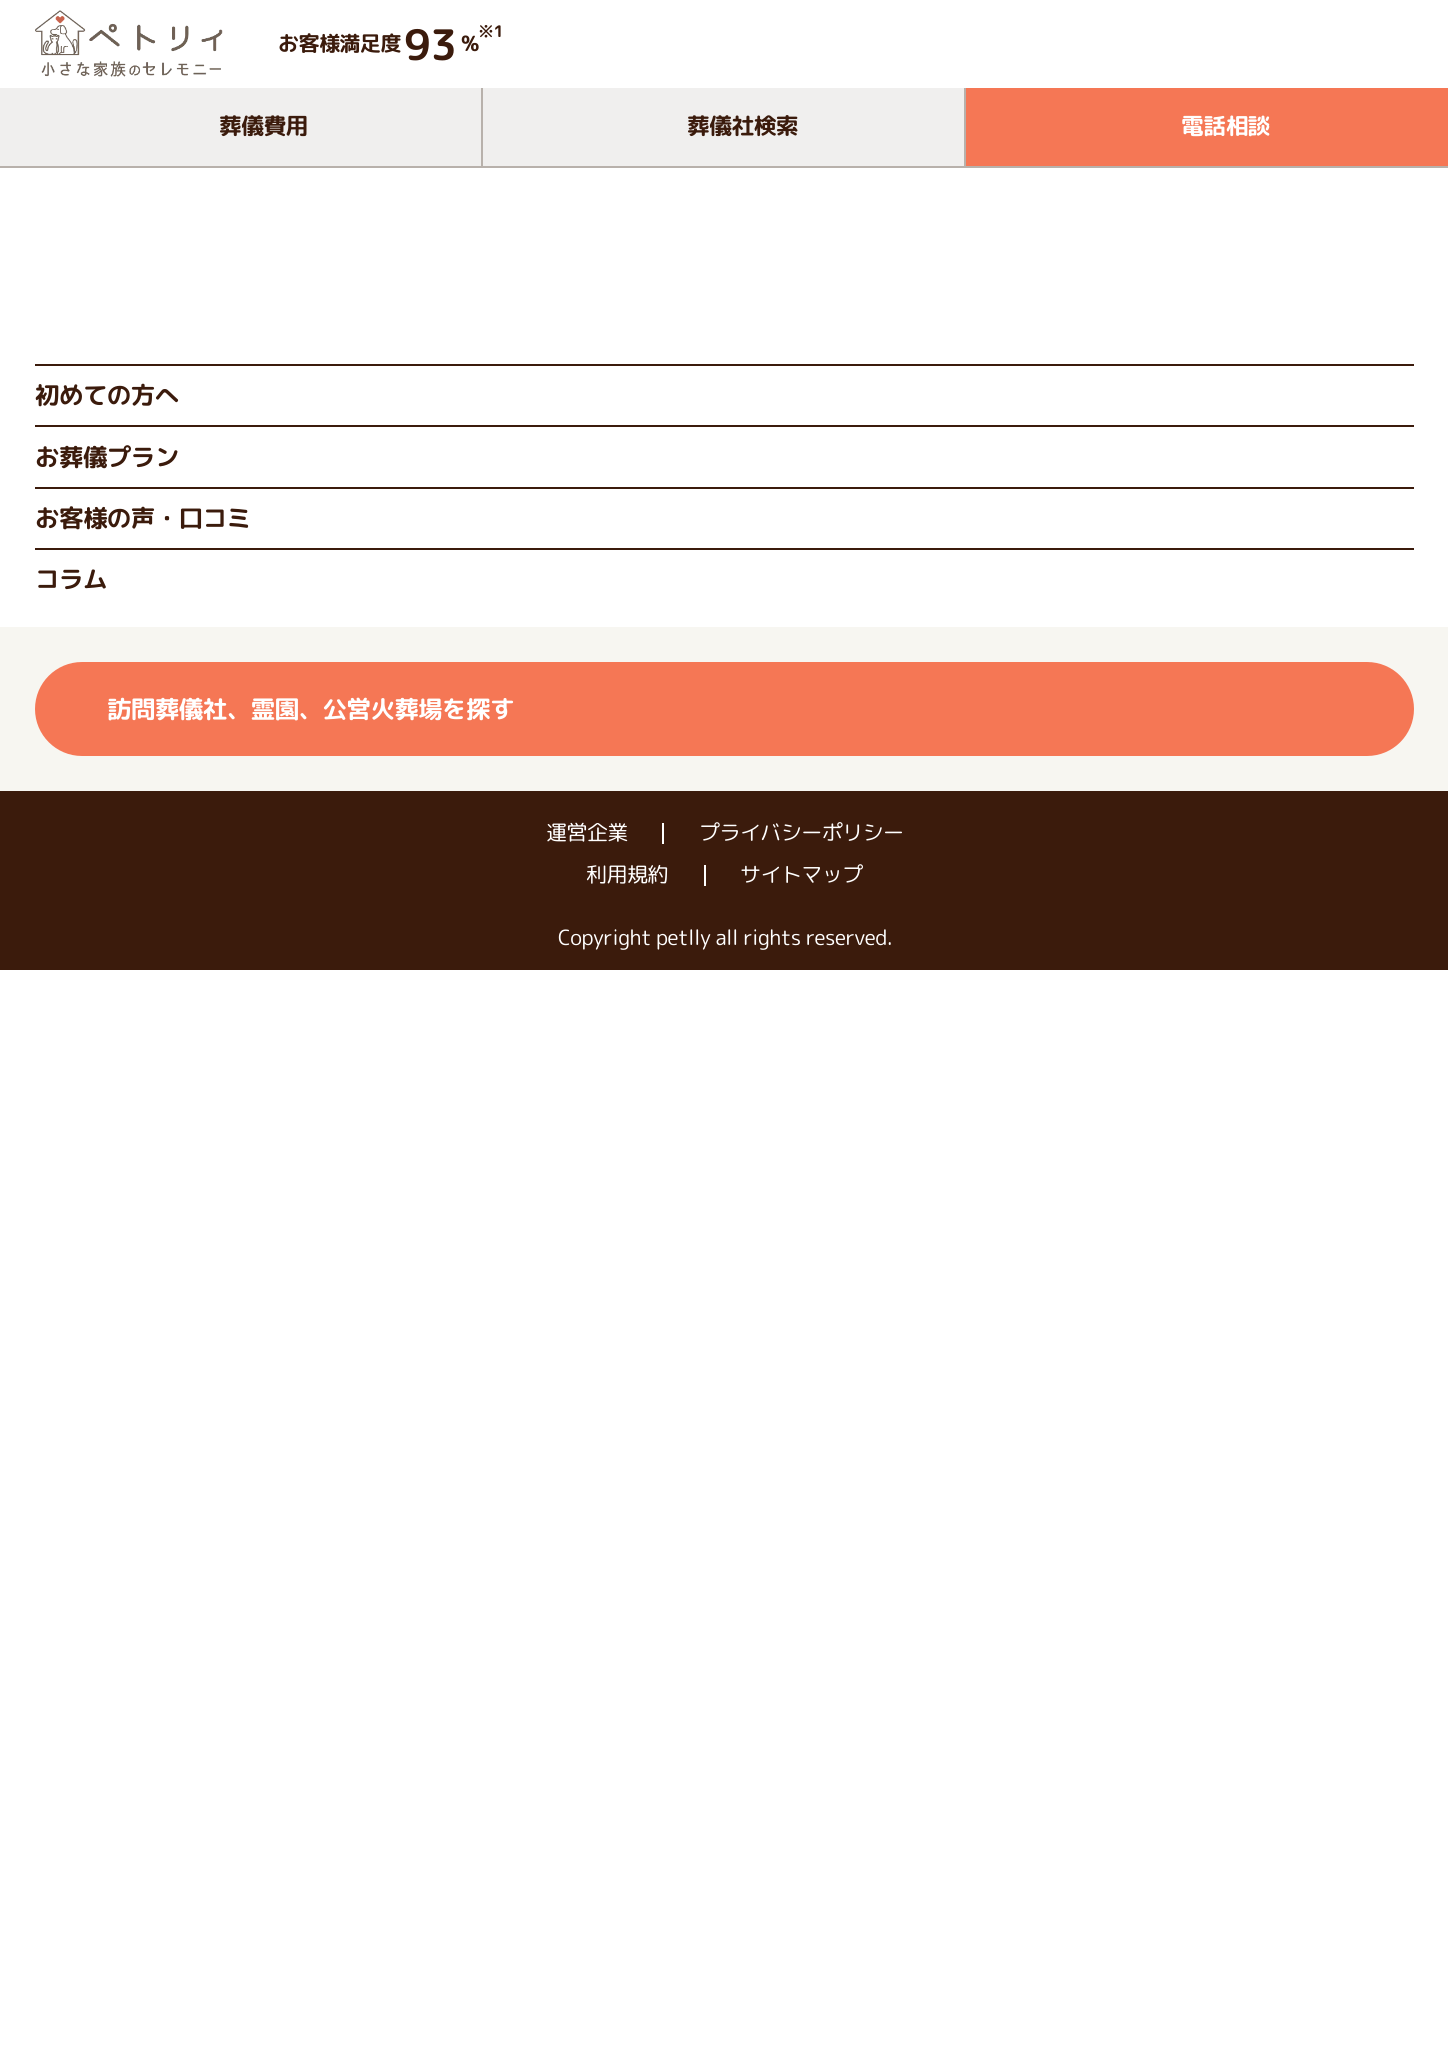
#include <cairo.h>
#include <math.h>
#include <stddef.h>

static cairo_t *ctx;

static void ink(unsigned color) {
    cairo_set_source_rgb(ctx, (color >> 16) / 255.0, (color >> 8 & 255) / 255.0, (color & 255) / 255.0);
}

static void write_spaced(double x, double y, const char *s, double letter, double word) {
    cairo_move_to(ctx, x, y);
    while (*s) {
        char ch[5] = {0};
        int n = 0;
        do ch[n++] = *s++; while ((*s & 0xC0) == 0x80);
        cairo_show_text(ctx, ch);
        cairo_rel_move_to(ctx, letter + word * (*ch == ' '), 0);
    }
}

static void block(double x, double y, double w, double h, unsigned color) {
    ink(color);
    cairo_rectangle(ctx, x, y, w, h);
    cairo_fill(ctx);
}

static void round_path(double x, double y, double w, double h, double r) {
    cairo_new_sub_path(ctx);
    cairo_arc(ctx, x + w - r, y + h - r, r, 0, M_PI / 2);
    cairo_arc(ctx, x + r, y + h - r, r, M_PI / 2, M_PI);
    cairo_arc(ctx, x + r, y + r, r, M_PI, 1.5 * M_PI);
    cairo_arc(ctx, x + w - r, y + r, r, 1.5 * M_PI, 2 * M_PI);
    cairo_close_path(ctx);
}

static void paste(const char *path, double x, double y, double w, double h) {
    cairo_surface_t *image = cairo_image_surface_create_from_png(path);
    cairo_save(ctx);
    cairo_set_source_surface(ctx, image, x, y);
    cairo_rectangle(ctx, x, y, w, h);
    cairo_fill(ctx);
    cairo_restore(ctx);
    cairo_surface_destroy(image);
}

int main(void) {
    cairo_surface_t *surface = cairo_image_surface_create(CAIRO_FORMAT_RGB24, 1448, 2049);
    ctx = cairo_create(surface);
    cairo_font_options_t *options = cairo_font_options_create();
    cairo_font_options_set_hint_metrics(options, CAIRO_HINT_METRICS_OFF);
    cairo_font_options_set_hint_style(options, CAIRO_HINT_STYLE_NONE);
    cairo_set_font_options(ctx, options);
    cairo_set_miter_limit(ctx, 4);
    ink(0xffffff);
    cairo_paint(ctx);
    paste("pic1.png", 35, 10, 188, 67);
    cairo_select_font_face(ctx, "Rounded Mplus 1c Bold", CAIRO_FONT_SLANT_NORMAL, CAIRO_FONT_WEIGHT_BOLD);
    cairo_set_font_size(ctx, 21);
    ink(0x3b1b0c);
    write_spaced(278, 51, "お客様満足度", -0.55, 0);
    cairo_set_font_size(ctx, 42);
    write_spaced(404, 60, "93", -0.55, 0);
    cairo_set_font_size(ctx, 21);
    write_spaced(461, 51, "%", -0.55, 0);
    cairo_set_font_size(ctx, 16);
    write_spaced(478, 37, "※1", -0.55, 0);
    block(0, 166, 1448, 2, 0xb8b1ab);
    block(0, 88, 481, 78, 0xf0efee);
    block(481, 88, 2, 78, 0xb8b1ab);
    cairo_set_font_size(ctx, 22.75);
    ink(0x3b1b0c);
    write_spaced(219, 134, "葬儀費用", -0.55, 0);
    block(483, 88, 481, 78, 0xf0efee);
    block(964, 88, 2, 78, 0xb8b1ab);
    ink(0x3b1b0c);
    write_spaced(687, 134, "葬儀社検索", -0.55, 0);
    block(966, 88, 482, 78, 0xf57755);
    ink(0xffffff);
    write_spaced(1181, 134, "電話相談", -0.55, 0);
    block(35, 364, 1379, 2, 0x3b1b0c);
    cairo_set_font_size(ctx, 24.5);
    write_spaced(35, 404, "初めての方へ", -0.55, 0);
    block(35, 425, 1379, 2, 0x3b1b0c);
    write_spaced(35, 466, "お葬儀プラン", -0.55, 0);
    block(35, 487, 1379, 2, 0x3b1b0c);
    write_spaced(35, 527, "お客様の声・口コミ", -0.55, 0);
    block(35, 548, 1379, 2, 0x3b1b0c);
    write_spaced(35, 588, "コラム", -0.55, 0);
    block(0, 627, 1448, 164, 0xf7f6f1);
    ink(0xf57755);
    round_path(35, 662, 1379, 94, 47);
    cairo_fill(ctx);
    ink(0xffffff);
    write_spaced(107, 718, "訪問葬儀社、霊園、公営火葬場を探す", -0.55, 0);
    block(0, 791, 1448, 179, 0x3b1b0c);
    block(662, 823, 2, 21, 0xffffff);
    cairo_select_font_face(ctx, "Rounded Mplus 1c", CAIRO_FONT_SLANT_NORMAL, CAIRO_FONT_WEIGHT_NORMAL);
    cairo_set_font_size(ctx, 21);
    write_spaced(546, 840, "運営企業", -0.55, 0);
    write_spaced(699, 840, "プライバシーポリシー", -0.55, 0);
    block(704, 865, 2, 21, 0xffffff);
    write_spaced(586, 882, "利用規約", -0.55, 0);
    write_spaced(740, 882, "サイトマップ", -0.55, 0);
    write_spaced(558, 945, "Copyright petlly all rights reserved.", -0.55, 0);
    cairo_surface_write_to_png(surface, "screenshot.png");
    cairo_font_options_destroy(options);
    cairo_destroy(ctx);
    cairo_surface_destroy(surface);
    return 0;
}
